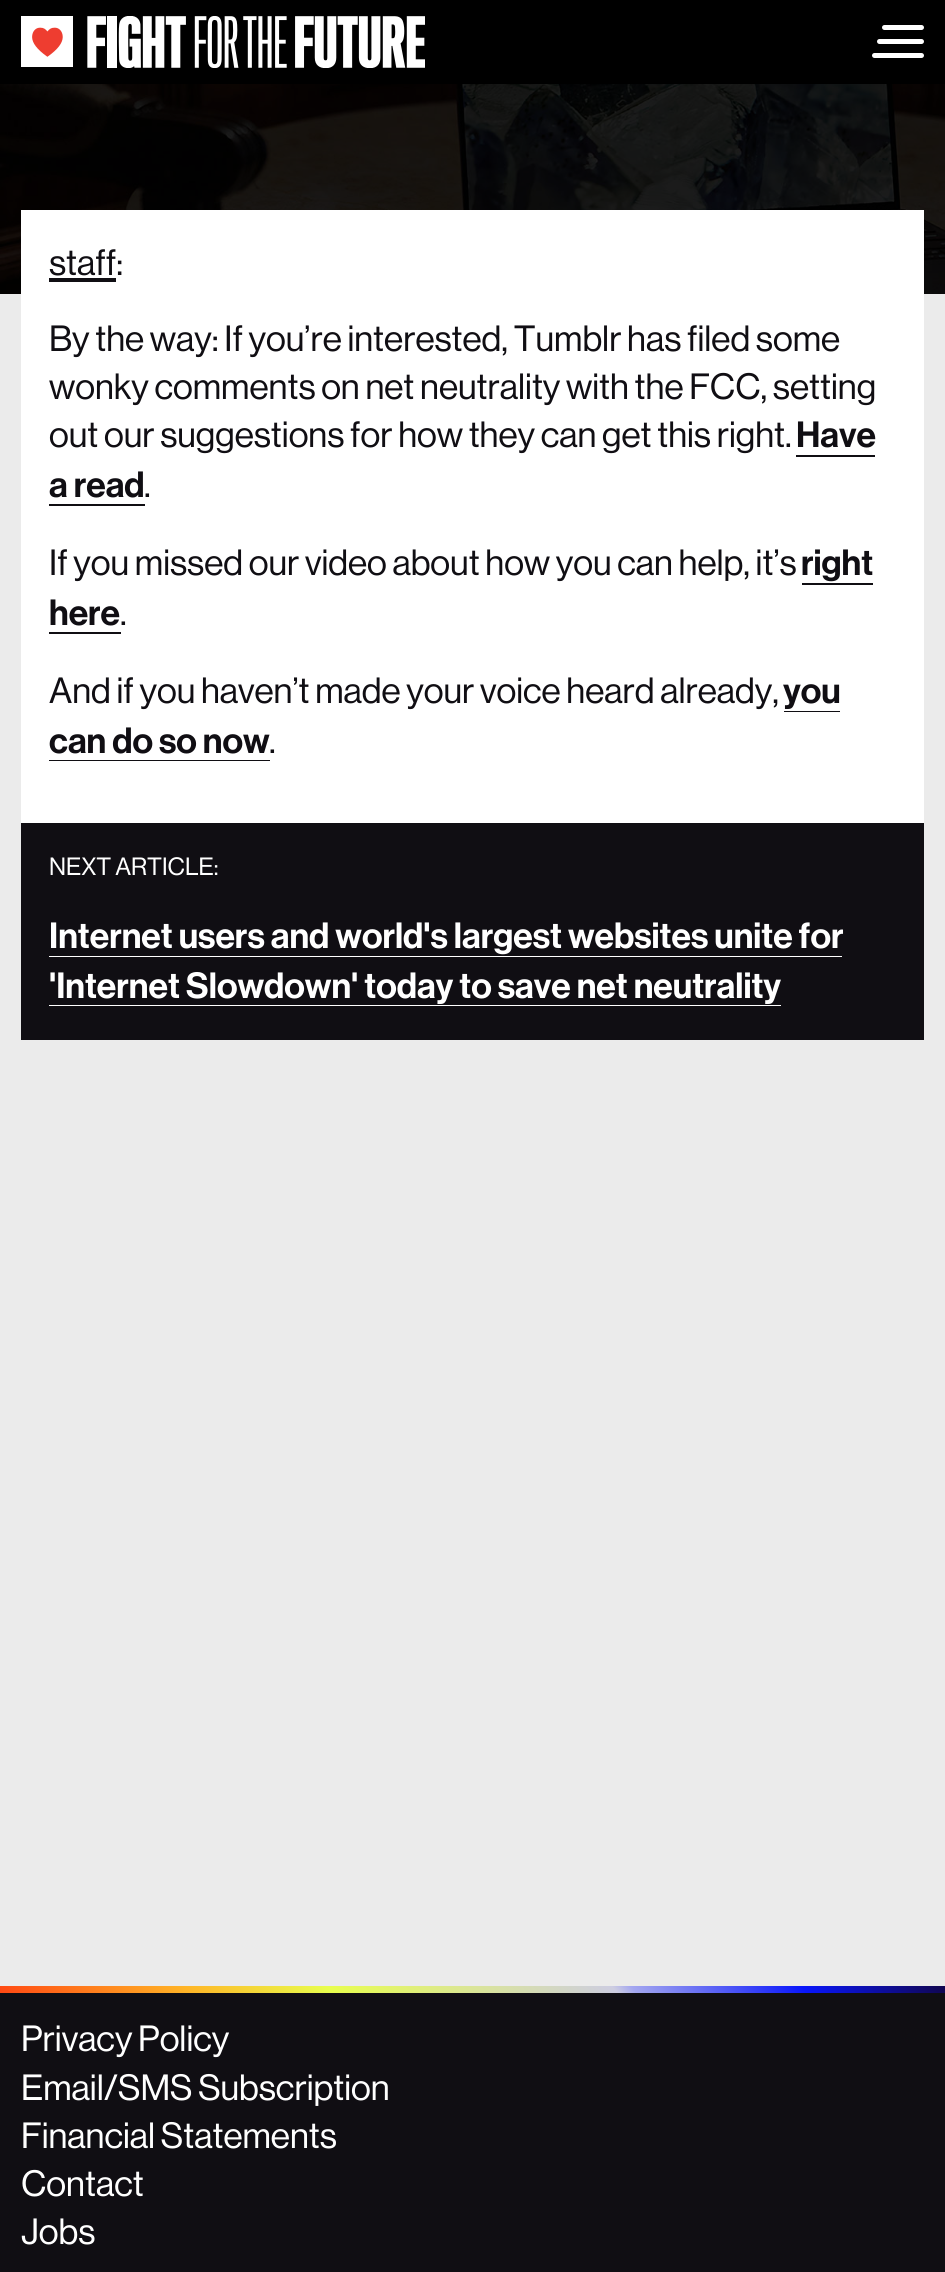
#include <cairo.h>
#include <math.h>
#include <stddef.h>

typedef struct { const char *family; double size; int italic, bold; unsigned color; } style_t;
static cairo_t *ctx;

static void ink(unsigned color) {
    cairo_set_source_rgb(ctx, (color >> 16) / 255.0, (color >> 8 & 255) / 255.0, (color & 255) / 255.0);
}

static void write(double x, double y, const char *s, const style_t *st) {
    cairo_select_font_face(ctx, st->family, st->italic ? CAIRO_FONT_SLANT_ITALIC : CAIRO_FONT_SLANT_NORMAL,
        st->bold ? CAIRO_FONT_WEIGHT_BOLD : CAIRO_FONT_WEIGHT_NORMAL);
    cairo_set_font_size(ctx, st->size);
    ink(st->color);
    cairo_move_to(ctx, x, y);
    cairo_show_text(ctx, s);
}

static void block(double x, double y, double w, double h, unsigned color) {
    ink(color);
    cairo_rectangle(ctx, x, y, w, h);
    cairo_fill(ctx);
}

static void round_path(double x, double y, double w, double h, double r) {
    cairo_new_sub_path(ctx);
    cairo_arc(ctx, x + w - r, y + h - r, r, 0, M_PI / 2);
    cairo_arc(ctx, x + r, y + h - r, r, M_PI / 2, M_PI);
    cairo_arc(ctx, x + r, y + r, r, M_PI, 1.5 * M_PI);
    cairo_arc(ctx, x + w - r, y + r, r, 1.5 * M_PI, 2 * M_PI);
    cairo_close_path(ctx);
}

static void paste(const char *path, double x, double y, double w, double h) {
    cairo_surface_t *image = cairo_image_surface_create_from_png(path);
    cairo_save(ctx);
    cairo_set_source_surface(ctx, image, x, y);
    cairo_rectangle(ctx, x, y, w, h);
    cairo_fill(ctx);
    cairo_restore(ctx);
    cairo_surface_destroy(image);
}

static const style_t s1 = {"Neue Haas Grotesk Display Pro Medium", 35.75, 0, 0, 0x100e13};
static const style_t s2 = {"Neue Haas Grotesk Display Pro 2 Medium", 35.75, 0, 0, 0x100e13};
static const style_t s3 = {"Neue Haas Grotesk Display Pro Medium", 24.5, 0, 0, 0xffffff};
static const style_t s4 = {"Neue Haas Grotesk Display Pro 2 Medium", 35.75, 0, 0, 0xffffff};
static const style_t s5 = {"Neue Haas Grotesk Display Pro Medium", 35.75, 0, 0, 0xffffff};

int main(void) {
    cairo_surface_t *surface = cairo_image_surface_create(CAIRO_FORMAT_RGB24, 945, 2272);
    ctx = cairo_create(surface);
    cairo_font_options_t *options = cairo_font_options_create();
    cairo_font_options_set_hint_metrics(options, CAIRO_HINT_METRICS_OFF);
    cairo_font_options_set_hint_style(options, CAIRO_HINT_STYLE_NONE);
    cairo_set_font_options(ctx, options);
    cairo_set_miter_limit(ctx, 4);
    cairo_pattern_t *gradient;
    ink(0x000000);
    cairo_paint(ctx);
    paste("pic1.png", 21, 16, 404, 52);
    ink(0xffffff);
    round_path(877, 39, 47, 5, 2.5);
    cairo_fill(ctx);
    round_path(882, 25, 42, 5, 2.5);
    cairo_fill(ctx);
    round_path(872, 53, 52, 5, 2.5);
    cairo_fill(ctx);
    block(0, 294, 945, 1692, 0xebebeb);
    paste("pic2.png", 0, 84, 945, 210);
    block(21, 210, 903, 613, 0xffffff);
    write(49, 275, "staff:", &s1);
    block(49, 278, 67, 4, 0x100e13);
    write(49, 351, "By the way: If you’re interested, Tumblr has filed some", &s1);
    write(49, 399, "wonky comments on net neutrality with the FCC, setting", &s1);
    write(49, 447, "out our suggestions for how they can get this right.", &s1);
    write(796, 447, "Have", &s2);
    block(796, 455, 79, 2, 0x100e13);
    write(49, 497, "a read", &s2);
    block(49, 504, 96, 2, 0x100e13);
    write(144, 497, ".", &s1);
    write(49, 575, "If you missed our video about how you can help, it’s", &s1);
    write(801, 575, "right", &s2);
    block(802, 583, 71, 2, 0x100e13);
    write(49, 625, "here", &s2);
    block(49, 632, 72, 2, 0x100e13);
    write(120, 625, ".", &s1);
    write(49, 703, "And if you haven’t made your voice heard already,", &s1);
    write(783, 703, "you", &s2);
    block(784, 711, 56, 1, 0x100e13);
    write(49, 753, "can do so now", &s2);
    block(49, 760, 221, 1, 0x100e13);
    write(269, 753, ".", &s1);
    block(21, 823, 903, 217, 0x100e13);
    write(49, 875, "NEXT ARTICLE:", &s3);
    write(49, 948, "Internet users and world's largest websites unite for", &s4);
    block(49, 956, 793, 1, 0xffffff);
    write(49, 998, "'Internet Slowdown' today to save net neutrality", &s4);
    block(49, 1005, 732, 1, 0xffffff);
    gradient = cairo_pattern_create_linear(194, 2224, 751, 1756);
    cairo_pattern_add_color_stop_rgba(gradient, 0, 1, 0.282, 0.075, 1);
    cairo_pattern_add_color_stop_rgba(gradient, 0.2, 1, 0.71, 0.153, 1);
    cairo_pattern_add_color_stop_rgba(gradient, 0.35, 0.91, 0.996, 0.302, 1);
    cairo_pattern_add_color_stop_rgba(gradient, 0.65, 0.804, 0.804, 0.882, 1);
    cairo_pattern_add_color_stop_rgba(gradient, 0.67, 0.643, 0.655, 0.941, 1);
    cairo_pattern_add_color_stop_rgba(gradient, 0.85, 0.035, 0.086, 0.984, 1);
    cairo_pattern_add_color_stop_rgba(gradient, 1, 0.067, 0.024, 0.306, 1);
    cairo_set_source(ctx, gradient);
    cairo_pattern_destroy(gradient);
    cairo_rectangle(ctx, 0, 1986, 945, 7);
    cairo_fill(ctx);
    block(0, 1993, 945, 279, 0x100e13);
    write(21, 2051, "Privacy Policy", &s5);
    write(21, 2100, "Email/SMS Subscription", &s5);
    write(21, 2148, "Financial Statements", &s5);
    write(21, 2196, "Contact", &s5);
    write(21, 2244, "Jobs", &s5);
    cairo_surface_write_to_png(surface, "screenshot.png");
    cairo_font_options_destroy(options);
    cairo_destroy(ctx);
    cairo_surface_destroy(surface);
    return 0;
}
